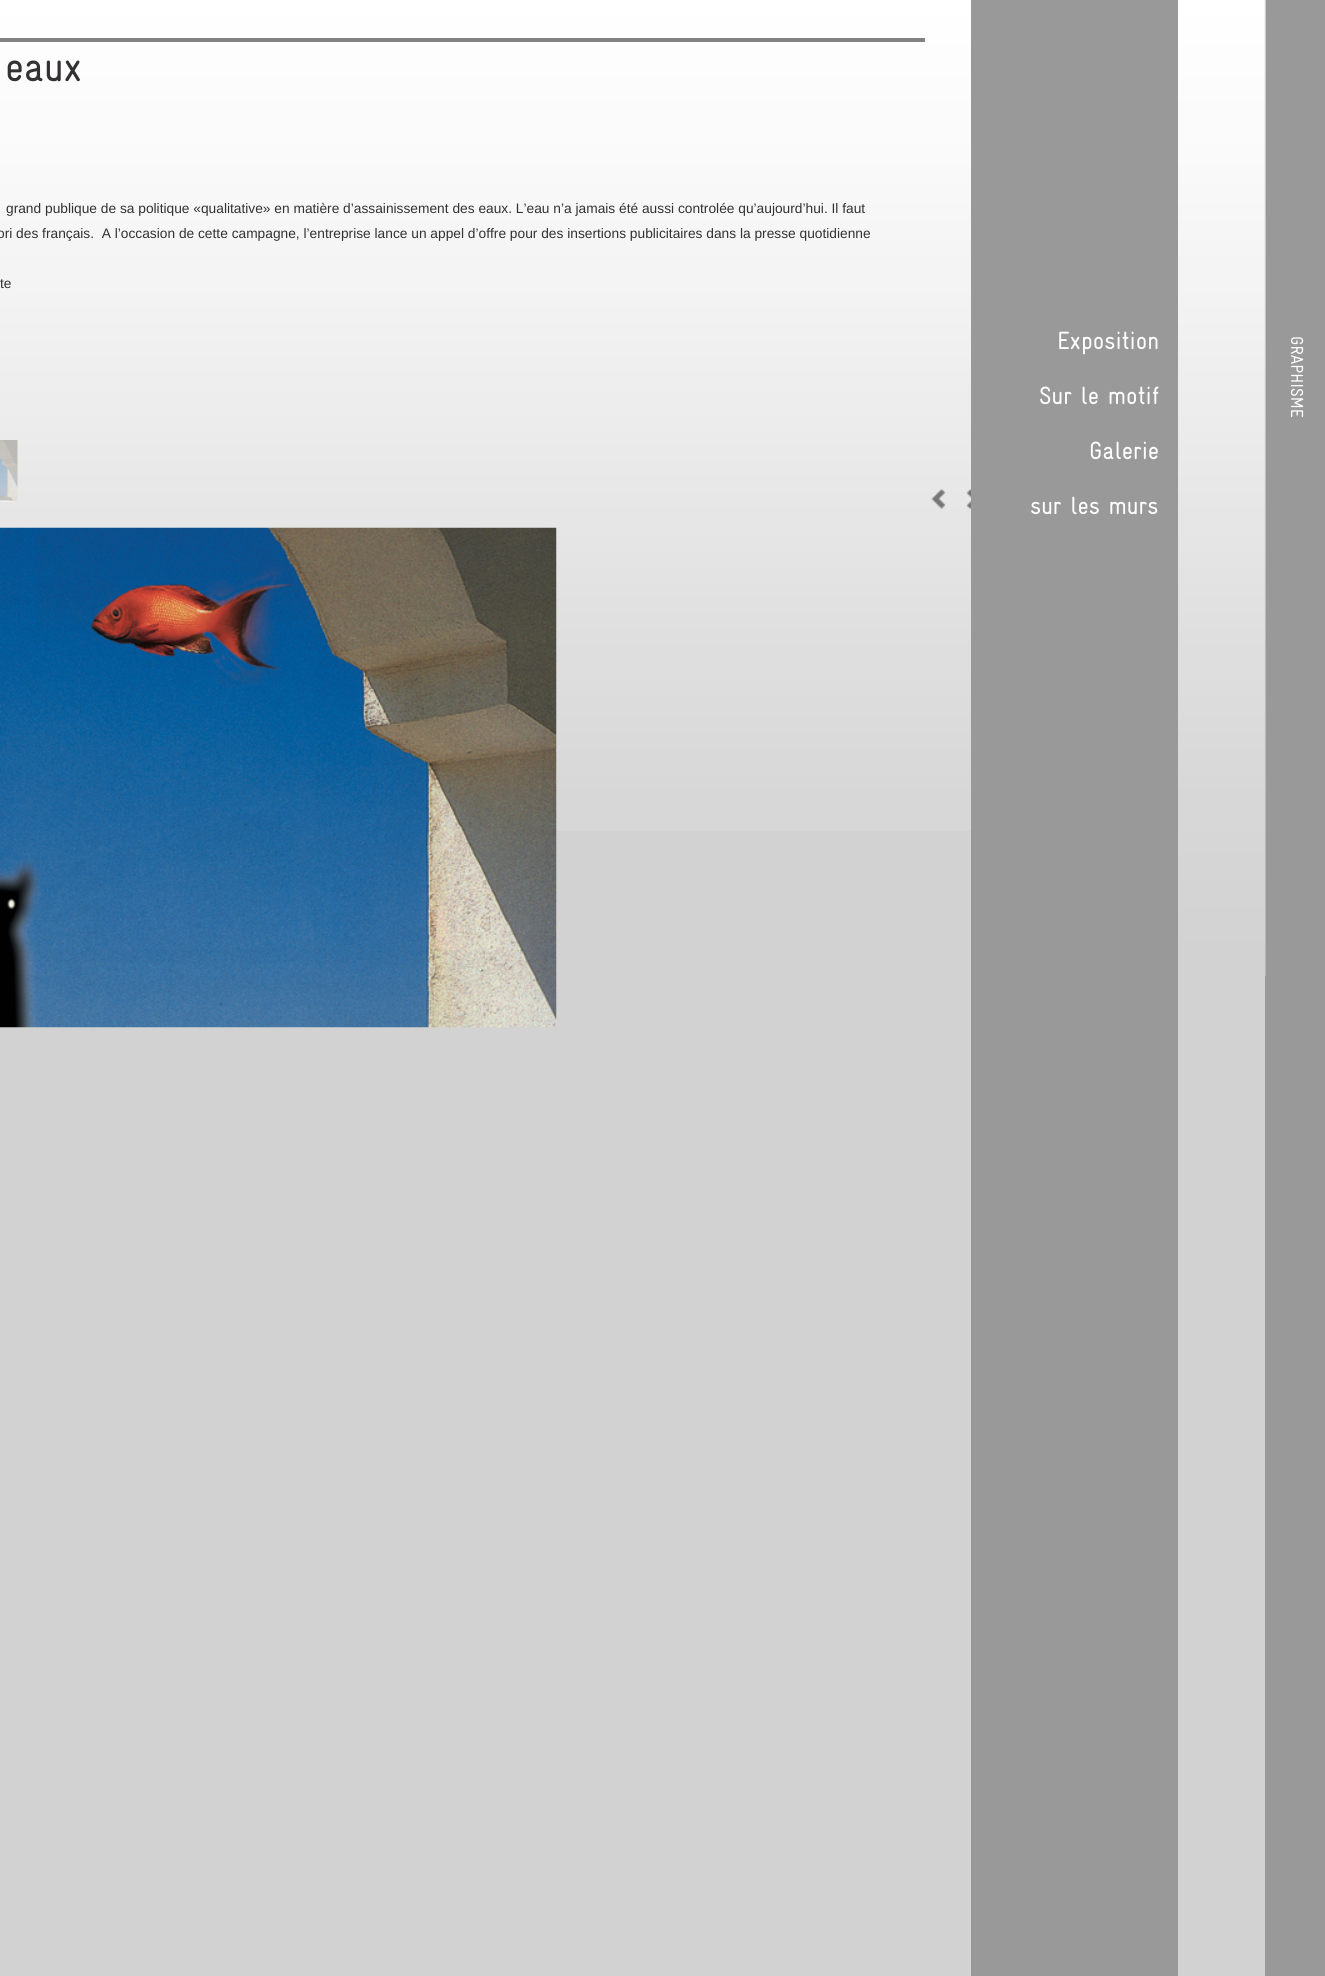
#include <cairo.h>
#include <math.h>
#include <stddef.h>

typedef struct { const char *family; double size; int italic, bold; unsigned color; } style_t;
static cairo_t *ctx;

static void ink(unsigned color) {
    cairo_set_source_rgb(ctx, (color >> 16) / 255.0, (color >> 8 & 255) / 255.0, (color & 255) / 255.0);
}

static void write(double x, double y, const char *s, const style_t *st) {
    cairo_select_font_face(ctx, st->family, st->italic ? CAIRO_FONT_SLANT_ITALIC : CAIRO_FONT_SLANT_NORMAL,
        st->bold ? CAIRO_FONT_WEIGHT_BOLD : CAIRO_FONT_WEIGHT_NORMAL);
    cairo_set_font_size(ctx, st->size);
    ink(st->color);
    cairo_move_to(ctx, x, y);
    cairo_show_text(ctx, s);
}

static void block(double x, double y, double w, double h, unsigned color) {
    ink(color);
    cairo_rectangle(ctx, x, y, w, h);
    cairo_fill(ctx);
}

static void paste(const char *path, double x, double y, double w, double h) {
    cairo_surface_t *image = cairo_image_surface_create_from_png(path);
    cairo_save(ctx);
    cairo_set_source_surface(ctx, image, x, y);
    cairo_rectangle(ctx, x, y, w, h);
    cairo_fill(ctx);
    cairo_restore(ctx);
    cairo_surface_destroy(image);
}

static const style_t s1 = {"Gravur", 42, 0, 0, 0x333132};
static const style_t s2 = {"Liberation Sans", 13.75, 0, 0, 0x333132};
static const style_t s3 = {"Gravur", 25, 0, 0, 0xffffff};
static const style_t s4 = {"Gravur", 17.5, 0, 0, 0xffffff};

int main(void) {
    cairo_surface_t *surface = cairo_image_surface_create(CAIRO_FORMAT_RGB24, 1325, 1976);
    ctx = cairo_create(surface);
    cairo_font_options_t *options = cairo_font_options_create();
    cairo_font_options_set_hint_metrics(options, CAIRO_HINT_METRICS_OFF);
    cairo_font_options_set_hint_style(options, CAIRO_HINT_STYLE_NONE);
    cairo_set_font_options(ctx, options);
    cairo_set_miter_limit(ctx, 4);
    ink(0xd3d2d2);
    cairo_paint(ctx);
    paste("pic1.png", 0, 0, 971, 831);
    block(0, 38, 925, 4, 0x828282);
    write(5, 81, "eaux", &s1);
    write(6, 213, "grand publique de sa politique «qualitative» en matière d’assainissement des eaux. L’eau n’a jamais été aussi controlée qu’aujourd’hui. Il faut", &s2);
    write(-3, 238, "ori des français.  A l’occasion de cette campagne, l’entreprise lance un appel d’offre pour des insertions publicitaires dans la presse quotidienne", &s2);
    write(0, 288, "te", &s2);
    paste("pic2.png", 0, 440, 18, 62);
    paste("pic3.png", 931, 488, 15, 21);
    paste("pic4.png", 966, 489, 5, 20);
    paste("pic5.png", 0, 527, 557, 501);
    block(971, 0, 354, 1976, 0x999999);
    write(1057, 349, "Exposition", &s3);
    write(1039, 404, "Sur le motif", &s3);
    write(1089, 459, "Galerie", &s3);
    write(1030, 514, "sur les murs", &s3);
    block(1178, 0, 87, 1976, 0xd3d2d2);
    paste("pic6.png", 1178, 0, 88, 977);
    cairo_save(ctx);
    cairo_translate(ctx, 1291, 336);
    cairo_rotate(ctx, 90 * M_PI / 180);
    write(0, 0, "GRAPHISME", &s4);
    cairo_restore(ctx);
    cairo_surface_write_to_png(surface, "screenshot.png");
    cairo_font_options_destroy(options);
    cairo_destroy(ctx);
    cairo_surface_destroy(surface);
    return 0;
}
